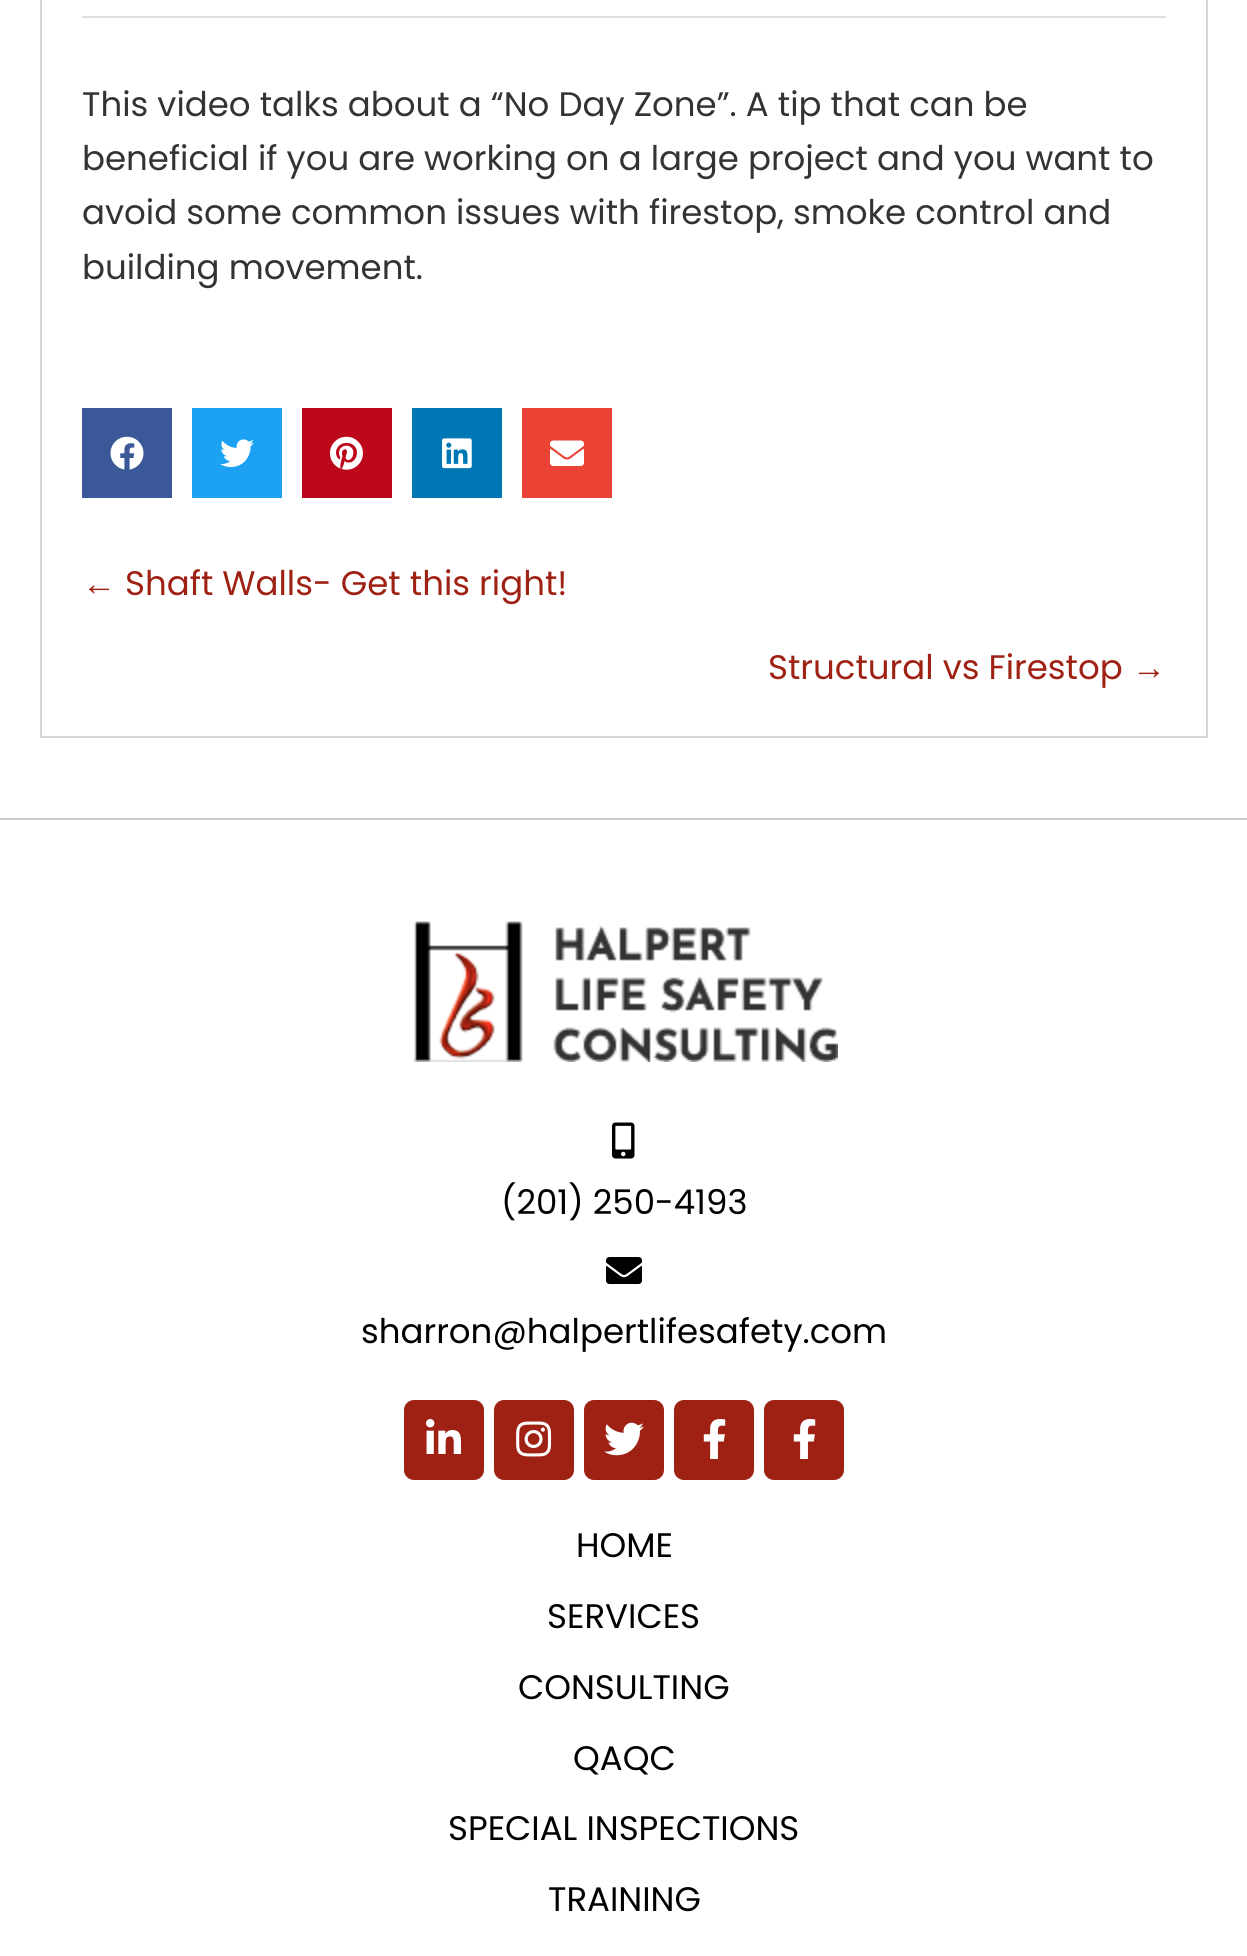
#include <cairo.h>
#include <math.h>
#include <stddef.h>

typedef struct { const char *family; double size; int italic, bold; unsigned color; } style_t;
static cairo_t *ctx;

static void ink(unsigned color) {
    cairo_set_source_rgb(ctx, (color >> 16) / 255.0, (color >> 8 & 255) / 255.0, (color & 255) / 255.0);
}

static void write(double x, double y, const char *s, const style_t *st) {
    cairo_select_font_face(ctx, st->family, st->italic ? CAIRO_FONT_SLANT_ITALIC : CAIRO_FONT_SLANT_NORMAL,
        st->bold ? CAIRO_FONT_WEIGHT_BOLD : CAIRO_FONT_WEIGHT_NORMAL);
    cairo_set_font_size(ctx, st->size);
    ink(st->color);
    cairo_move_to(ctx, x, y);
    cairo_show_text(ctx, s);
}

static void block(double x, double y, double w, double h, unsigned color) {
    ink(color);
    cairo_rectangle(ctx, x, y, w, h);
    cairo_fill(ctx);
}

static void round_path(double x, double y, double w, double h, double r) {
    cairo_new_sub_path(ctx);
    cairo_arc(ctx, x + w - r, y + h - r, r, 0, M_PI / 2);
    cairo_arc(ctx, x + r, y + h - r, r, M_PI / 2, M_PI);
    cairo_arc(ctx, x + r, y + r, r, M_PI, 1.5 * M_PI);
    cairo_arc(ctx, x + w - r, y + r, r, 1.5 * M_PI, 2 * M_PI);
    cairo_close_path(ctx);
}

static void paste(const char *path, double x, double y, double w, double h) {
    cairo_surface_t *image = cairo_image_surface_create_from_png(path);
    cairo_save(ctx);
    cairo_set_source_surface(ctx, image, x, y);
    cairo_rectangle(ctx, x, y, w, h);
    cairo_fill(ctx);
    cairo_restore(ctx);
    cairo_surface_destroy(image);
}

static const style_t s1 = {"Poppins", 34, 0, 0, 0x333333};
static const style_t s2 = {"Liberation Sans", 34, 0, 0, 0x9e2113};
static const style_t s3 = {"Poppins", 34, 0, 0, 0x9e2113};
static const style_t s4 = {"Poppins", 34, 0, 0, 0x000000};

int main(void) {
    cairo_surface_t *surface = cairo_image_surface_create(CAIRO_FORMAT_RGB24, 1247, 1956);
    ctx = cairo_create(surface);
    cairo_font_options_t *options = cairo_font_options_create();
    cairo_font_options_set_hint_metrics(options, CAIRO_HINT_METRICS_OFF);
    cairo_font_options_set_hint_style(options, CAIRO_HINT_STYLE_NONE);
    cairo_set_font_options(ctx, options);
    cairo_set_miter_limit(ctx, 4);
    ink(0xffffff);
    cairo_paint(ctx);
    cairo_rectangle(ctx, 41, -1, 1166, 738);
    ink(0xd6d6d6);
    cairo_stroke(ctx);
    block(82, 16, 1084, 2, 0xe0e0e0);
    write(82, 116, "This video talks about a “No Day Zone”. A tip that can be", &s1);
    write(82, 170, "beneficial if you are working on a large project and you want to", &s1);
    write(82, 224, "avoid some common issues with firestop, smoke control and", &s1);
    write(82, 279, "building movement.", &s1);
    block(82, 408, 90, 90, 0x3b5998);
    paste("pic1.png", 110, 436, 34, 34);
    block(192, 408, 90, 90, 0x1da1f2);
    paste("pic2.png", 220, 439, 34, 29);
    block(302, 408, 90, 90, 0xbd081c);
    paste("pic3.png", 330, 436, 33, 34);
    block(412, 408, 90, 90, 0x0077b5);
    paste("pic4.png", 442, 438, 30, 31);
    block(522, 408, 90, 90, 0xea4335);
    paste("pic5.png", 550, 440, 34, 26);
    write(82, 595, "←", &s2);
    write(125, 595, "Shaft Walls- Get this right!", &s3);
    write(768, 679, "Structural vs Firestop", &s3);
    write(1132, 679, "→", &s2);
    block(0, 818, 1247, 2, 0xcccccc);
    paste("pic6.png", 413, 921, 425, 141);
    paste("pic7.png", 612, 1122, 23, 37);
    write(501, 1214, "(201) 250-4193", &s4);
    paste("pic8.png", 606, 1257, 36, 27);
    write(361, 1343, "sharron@halpertlifesafety.com", &s4);
    ink(0x9e2113);
    round_path(404, 1400, 80, 80, 10);
    cairo_fill(ctx);
    paste("pic9.png", 426, 1419, 35, 35);
    round_path(494, 1400, 80, 80, 10);
    cairo_fill(ctx);
    paste("pic10.png", 516, 1421, 36, 36);
    round_path(584, 1400, 80, 80, 10);
    cairo_fill(ctx);
    paste("pic11.png", 604, 1422, 40, 34);
    round_path(674, 1400, 80, 80, 10);
    cairo_fill(ctx);
    paste("pic12.png", 703, 1419, 23, 40);
    round_path(764, 1400, 80, 80, 10);
    cairo_fill(ctx);
    paste("pic12.png", 793, 1419, 23, 40);
    write(576, 1557, "HOME", &s4);
    write(547, 1628, "SERVICES", &s4);
    write(518, 1699, "CONSULTING", &s4);
    write(573, 1770, "QAQC", &s4);
    write(448, 1840, "SPECIAL INSPECTIONS", &s4);
    write(548, 1911, "TRAINING", &s4);
    cairo_surface_write_to_png(surface, "screenshot.png");
    cairo_font_options_destroy(options);
    cairo_destroy(ctx);
    cairo_surface_destroy(surface);
    return 0;
}
